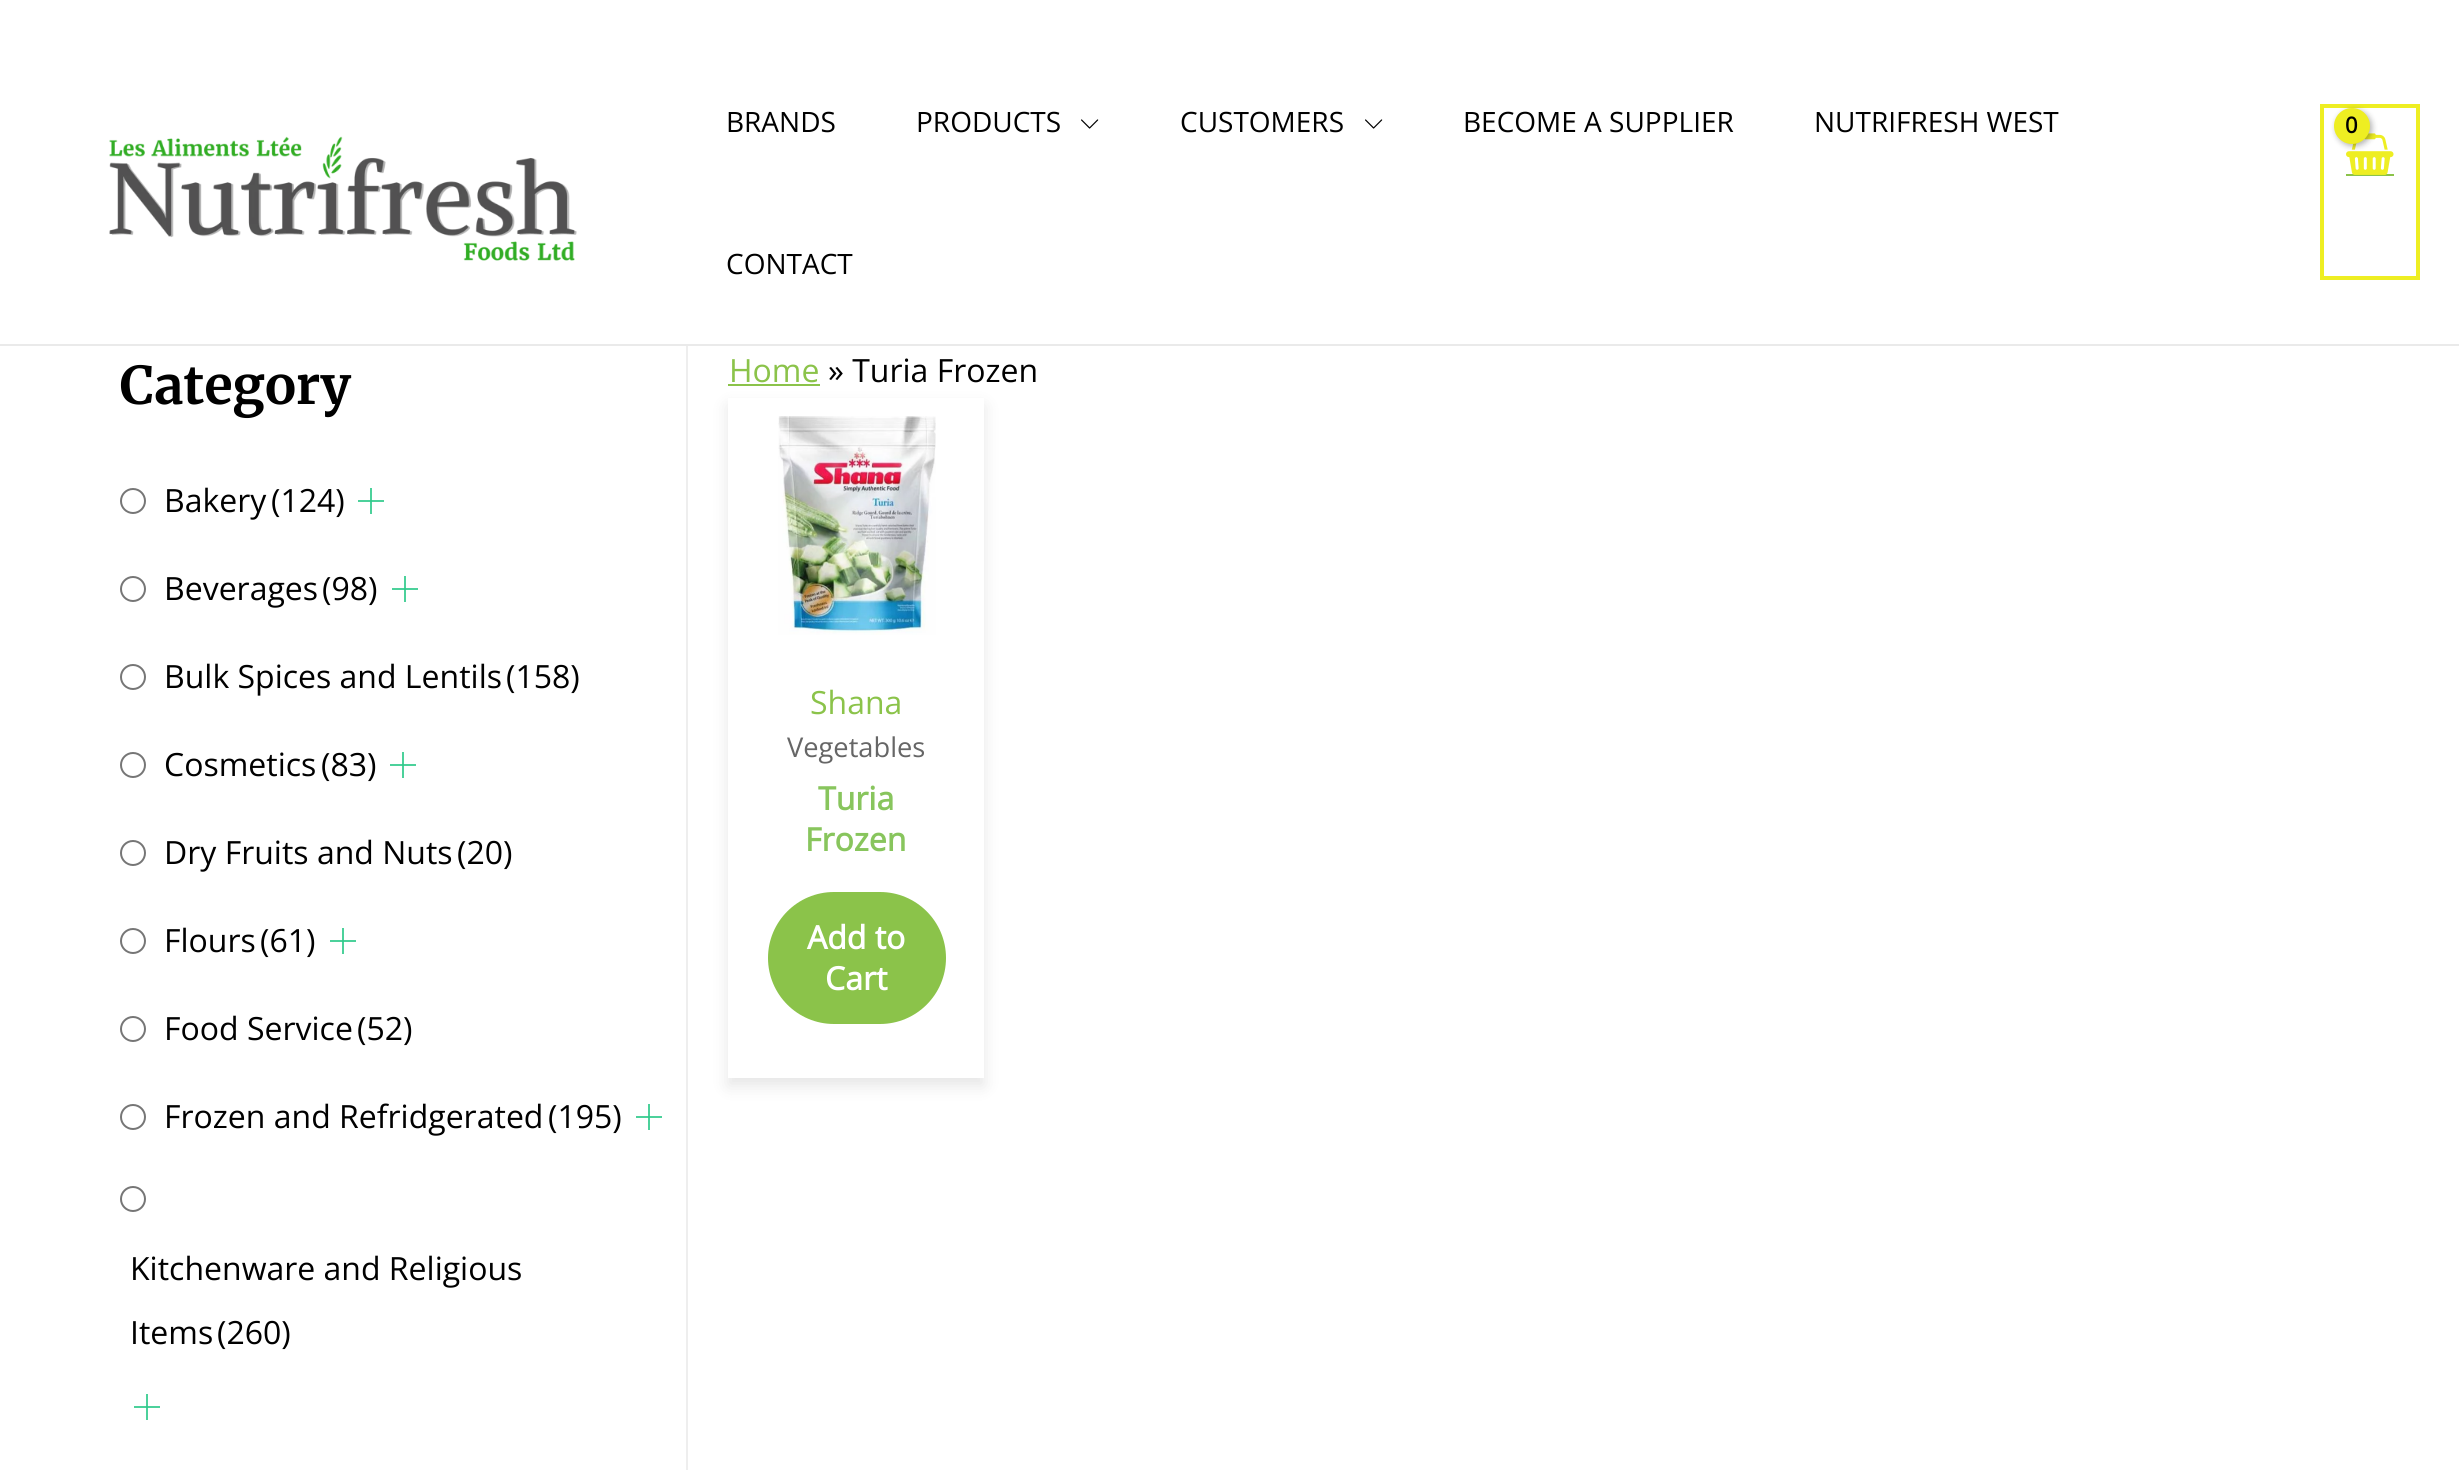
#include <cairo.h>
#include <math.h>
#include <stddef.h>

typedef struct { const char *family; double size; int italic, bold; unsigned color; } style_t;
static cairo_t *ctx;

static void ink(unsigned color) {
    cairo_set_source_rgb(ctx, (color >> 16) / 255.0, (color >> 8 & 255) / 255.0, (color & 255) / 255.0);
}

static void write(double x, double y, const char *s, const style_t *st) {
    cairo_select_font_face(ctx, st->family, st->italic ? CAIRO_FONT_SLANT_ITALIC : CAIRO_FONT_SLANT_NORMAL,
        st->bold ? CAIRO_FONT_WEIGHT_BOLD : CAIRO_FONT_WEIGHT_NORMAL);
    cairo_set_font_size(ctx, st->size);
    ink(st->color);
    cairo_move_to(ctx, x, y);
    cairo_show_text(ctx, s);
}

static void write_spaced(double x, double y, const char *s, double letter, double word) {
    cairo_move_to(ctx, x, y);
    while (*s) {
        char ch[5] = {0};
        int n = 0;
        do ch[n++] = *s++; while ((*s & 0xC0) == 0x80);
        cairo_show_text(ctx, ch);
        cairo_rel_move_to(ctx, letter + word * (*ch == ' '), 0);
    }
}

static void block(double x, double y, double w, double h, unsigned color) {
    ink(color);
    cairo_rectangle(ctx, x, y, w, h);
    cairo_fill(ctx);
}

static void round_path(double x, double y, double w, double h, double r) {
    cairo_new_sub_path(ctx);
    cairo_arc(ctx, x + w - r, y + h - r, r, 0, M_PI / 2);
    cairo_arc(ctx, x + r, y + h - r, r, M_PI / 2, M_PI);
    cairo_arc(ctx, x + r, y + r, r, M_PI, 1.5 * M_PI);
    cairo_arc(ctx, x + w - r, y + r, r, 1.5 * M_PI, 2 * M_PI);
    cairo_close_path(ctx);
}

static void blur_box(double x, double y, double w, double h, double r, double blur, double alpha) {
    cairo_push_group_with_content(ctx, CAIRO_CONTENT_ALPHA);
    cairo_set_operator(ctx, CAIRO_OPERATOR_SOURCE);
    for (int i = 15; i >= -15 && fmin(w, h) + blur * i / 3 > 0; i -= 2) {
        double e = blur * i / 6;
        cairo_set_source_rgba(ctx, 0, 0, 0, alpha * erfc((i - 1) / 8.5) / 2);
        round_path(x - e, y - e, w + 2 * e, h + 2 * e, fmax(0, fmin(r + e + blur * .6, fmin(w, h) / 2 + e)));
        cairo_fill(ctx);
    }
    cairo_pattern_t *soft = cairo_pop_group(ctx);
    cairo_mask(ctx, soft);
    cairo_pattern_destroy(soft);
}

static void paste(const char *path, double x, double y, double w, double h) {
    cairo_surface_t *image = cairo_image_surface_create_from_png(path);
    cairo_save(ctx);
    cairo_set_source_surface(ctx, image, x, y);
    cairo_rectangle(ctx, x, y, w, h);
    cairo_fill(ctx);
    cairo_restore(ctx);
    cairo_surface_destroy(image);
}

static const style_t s1 = {"Open Sans", 28, 0, 0, 0x000000};
static const style_t s2 = {"Merriweather Light", 52, 0, 0, 0x000000};
static const style_t s3 = {"Open Sans", 32, 0, 0, 0x000000};
static const style_t s4 = {"Open Sans", 32, 0, 0, 0x8bc34a};
static const style_t s5 = {"Open Sans", 27.25, 0, 0, 0x666666};
static const style_t s6 = {"Open Sans", 32, 0, 1, 0x88c55d};
static const style_t s7 = {"Open Sans", 32, 0, 1, 0xffffff};

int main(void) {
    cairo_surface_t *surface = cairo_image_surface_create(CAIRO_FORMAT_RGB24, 2459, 1470);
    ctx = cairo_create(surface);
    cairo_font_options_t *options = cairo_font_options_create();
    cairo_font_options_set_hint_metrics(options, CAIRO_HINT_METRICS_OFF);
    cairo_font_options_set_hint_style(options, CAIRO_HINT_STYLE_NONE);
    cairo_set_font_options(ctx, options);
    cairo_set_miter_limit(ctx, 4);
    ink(0xffffff);
    cairo_paint(ctx);
    block(0, 344, 2459, 2, 0xeaeaea);
    paste("pic1.png", 109, 136, 468, 125);
    write(726, 132, "BRANDS", &s1);
    write(916, 132, "PRODUCTS", &s1);
    paste("pic2.png", 1081, 119, 18, 10);
    write(1180, 132, "CUSTOMERS", &s1);
    paste("pic2.png", 1365, 119, 18, 10);
    write(1463, 132, "BECOME A SUPPLIER", &s1);
    write(1814, 132, "NUTRIFRESH WEST", &s1);
    write(726, 274, "CONTACT", &s1);
    cairo_rectangle(ctx, 2322, 106, 96, 172);
    ink(0xeeee22);
    cairo_set_line_width(ctx, 4);
    cairo_stroke(ctx);
    block(2346, 174, 48, 2, 0x8bc34a);
    paste("pic3.png", 2346, 133, 48, 42);
    ink(0x000000);
    blur_box(2336, 110, 36, 36, 18, 3, 0.3);
    ink(0xeeee22);
    cairo_arc(ctx, 2352, 126, 18, 0, 2 * M_PI);
    cairo_fill(ctx);
    cairo_select_font_face(ctx, "Open Sans", CAIRO_FONT_SLANT_NORMAL, CAIRO_FONT_WEIGHT_BOLD);
    cairo_set_font_size(ctx, 22);
    ink(0x000000);
    write_spaced(2345, 133, "0", -1, 0);
    block(686, 346, 2, 1124, 0xeeeeee);
    write(120, 404, "Category", &s2);
    cairo_new_path(ctx);
    cairo_arc(ctx, 133, 501, 12, 0, 2 * M_PI);
    ink(0x767676);
    cairo_set_line_width(ctx, 2);
    cairo_stroke(ctx);
    write(164, 512, "Bakery", &s3);
    write(271, 512, "(124)", &s3);
    paste("pic4.png", 358, 488, 26, 26);
    cairo_arc(ctx, 133, 589, 12, 0, 2 * M_PI);
    ink(0x767676);
    cairo_stroke(ctx);
    write(164, 600, "Beverages", &s3);
    write(322, 600, "(98)", &s3);
    paste("pic4.png", 392, 576, 26, 26);
    cairo_arc(ctx, 133, 677, 12, 0, 2 * M_PI);
    ink(0x767676);
    cairo_stroke(ctx);
    write(164, 688, "Bulk Spices and Lentils", &s3);
    write(506, 688, "(158)", &s3);
    cairo_new_path(ctx);
    cairo_arc(ctx, 133, 765, 12, 0, 2 * M_PI);
    ink(0x767676);
    cairo_stroke(ctx);
    write(164, 776, "Cosmetics", &s3);
    write(321, 776, "(83)", &s3);
    paste("pic4.png", 390, 752, 26, 26);
    cairo_arc(ctx, 133, 853, 12, 0, 2 * M_PI);
    ink(0x767676);
    cairo_stroke(ctx);
    write(164, 864, "Dry Fruits and Nuts", &s3);
    write(457, 864, "(20)", &s3);
    cairo_new_path(ctx);
    cairo_arc(ctx, 133, 941, 12, 0, 2 * M_PI);
    ink(0x767676);
    cairo_stroke(ctx);
    write(164, 952, "Flours", &s3);
    write(260, 952, "(61)", &s3);
    paste("pic4.png", 330, 928, 26, 26);
    cairo_arc(ctx, 133, 1029, 12, 0, 2 * M_PI);
    ink(0x767676);
    cairo_stroke(ctx);
    write(164, 1040, "Food Service", &s3);
    write(357, 1040, "(52)", &s3);
    cairo_new_path(ctx);
    cairo_arc(ctx, 133, 1117, 12, 0, 2 * M_PI);
    ink(0x767676);
    cairo_stroke(ctx);
    write(164, 1128, "Frozen and Refridgerated", &s3);
    write(548, 1128, "(195)", &s3);
    paste("pic4.png", 636, 1104, 26, 26);
    cairo_arc(ctx, 133, 1199, 12, 0, 2 * M_PI);
    ink(0x767676);
    cairo_stroke(ctx);
    write(130, 1280, "Kitchenware and Religious", &s3);
    write(130, 1344, "Items", &s3);
    write(217, 1344, "(260)", &s3);
    paste("pic4.png", 134, 1394, 26, 26);
    write(729, 382, "Home", &s4);
    block(728, 384, 92, 2, 0x8bc34a);
    write(828, 382, "» Turia Frozen", &s3);
    cairo_save(ctx);
    cairo_set_fill_rule(ctx, CAIRO_FILL_RULE_EVEN_ODD);
    cairo_new_path(ctx);
    cairo_move_to(ctx, 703, 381);
    cairo_line_to(ctx, 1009, 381);
    cairo_line_to(ctx, 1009, 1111);
    cairo_line_to(ctx, 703, 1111);
    cairo_close_path(ctx);
    cairo_move_to(ctx, 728, 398);
    cairo_line_to(ctx, 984, 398);
    cairo_line_to(ctx, 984, 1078);
    cairo_line_to(ctx, 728, 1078);
    cairo_close_path(ctx);
    cairo_clip(ctx);
    ink(0x000000);
    blur_box(728, 406, 256, 680, 0, 8, 0.1);
    cairo_restore(ctx);
    paste("pic5.png", 778, 416, 158, 219);
    write(810, 714, "Shana", &s4);
    write(787, 757, "Vegetables", &s5);
    write(818, 810, "Turia", &s6);
    write(805, 851, "Frozen", &s6);
    ink(0x8bc34a);
    round_path(768, 892, 178, 132, 66);
    cairo_fill(ctx);
    write(807, 949, "Add to", &s7);
    write(825, 990, "Cart", &s7);
    cairo_surface_write_to_png(surface, "screenshot.png");
    cairo_font_options_destroy(options);
    cairo_destroy(ctx);
    cairo_surface_destroy(surface);
    return 0;
}
